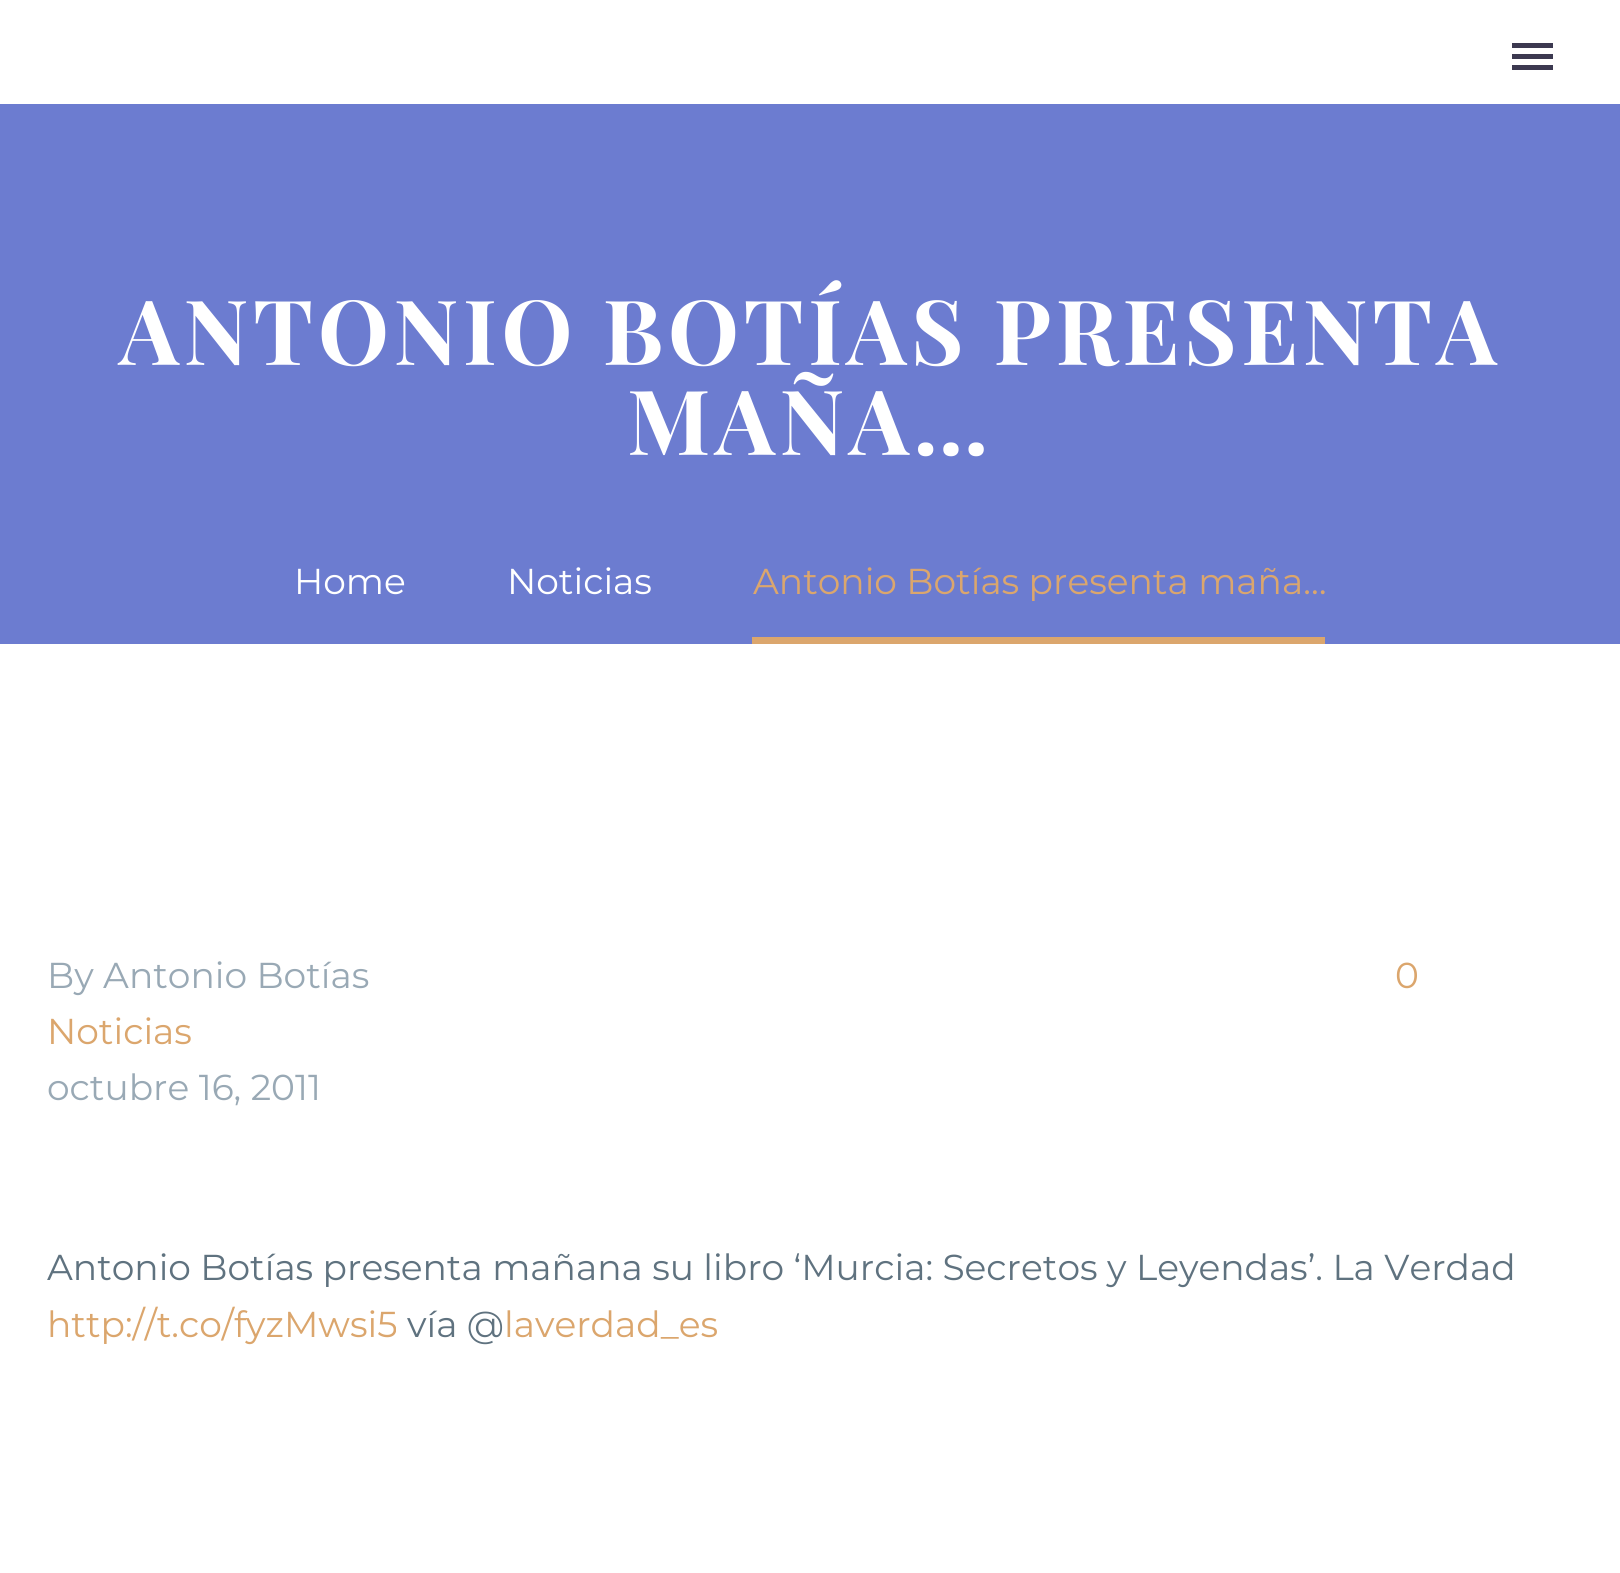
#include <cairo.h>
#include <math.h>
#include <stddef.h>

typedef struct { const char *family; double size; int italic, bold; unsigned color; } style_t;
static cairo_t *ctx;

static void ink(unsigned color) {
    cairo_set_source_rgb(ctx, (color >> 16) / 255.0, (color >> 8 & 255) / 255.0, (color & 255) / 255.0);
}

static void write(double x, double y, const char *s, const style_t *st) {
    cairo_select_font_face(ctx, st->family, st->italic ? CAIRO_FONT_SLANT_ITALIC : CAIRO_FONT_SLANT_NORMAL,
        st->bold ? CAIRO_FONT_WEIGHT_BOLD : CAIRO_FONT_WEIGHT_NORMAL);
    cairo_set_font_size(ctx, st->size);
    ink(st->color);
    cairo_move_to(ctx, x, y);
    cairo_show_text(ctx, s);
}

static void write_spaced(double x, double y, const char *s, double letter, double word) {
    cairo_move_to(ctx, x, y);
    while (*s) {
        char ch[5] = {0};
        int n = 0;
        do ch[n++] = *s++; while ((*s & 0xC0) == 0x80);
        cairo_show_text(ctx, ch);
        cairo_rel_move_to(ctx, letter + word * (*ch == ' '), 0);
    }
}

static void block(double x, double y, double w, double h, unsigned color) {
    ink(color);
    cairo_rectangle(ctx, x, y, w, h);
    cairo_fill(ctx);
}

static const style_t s1 = {"Montserrat", 36, 0, 0, 0xffffff};
static const style_t s2 = {"Montserrat", 36, 0, 0, 0xdba66d};
static const style_t s3 = {"Montserrat", 36, 0, 0, 0x99a9b5};
static const style_t s4 = {"Montserrat", 36, 0, 0, 0x5f727f};

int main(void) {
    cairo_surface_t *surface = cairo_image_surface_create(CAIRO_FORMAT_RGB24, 1620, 1573);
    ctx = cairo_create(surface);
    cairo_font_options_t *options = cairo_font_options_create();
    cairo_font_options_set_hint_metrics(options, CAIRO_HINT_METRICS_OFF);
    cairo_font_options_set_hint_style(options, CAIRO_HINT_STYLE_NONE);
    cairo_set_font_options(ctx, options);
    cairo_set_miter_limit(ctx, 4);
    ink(0xffffff);
    cairo_paint(ctx);
    block(1512, 43, 41, 5, 0x3c3950);
    block(1512, 54, 41, 5, 0x3c3950);
    block(1512, 65, 41, 5, 0x3c3950);
    block(0, 104, 1620, 540, 0x6c7cd0);
    cairo_select_font_face(ctx, "Playfair Display", CAIRO_FONT_SLANT_NORMAL, CAIRO_FONT_WEIGHT_BOLD);
    cairo_set_font_size(ctx, 90);
    ink(0xffffff);
    write_spaced(119, 365, "ANTONIO BOTÍAS PRESENTA", 4.5, 0);
    write_spaced(627, 455, "MAÑA…", 4.5, 0);
    write(294, 594, "Home", &s1);
    write(507, 594, "Noticias", &s1);
    block(752, 637, 573, 7, 0xdba66d);
    write(753, 594, "Antonio Botías presenta maña…", &s2);
    write(47, 988, "By Antonio Botías", &s3);
    write(47, 1044, "Noticias", &s2);
    write(47, 1100, "octubre 16, 2011", &s3);
    write(1395, 988, "0", &s2);
    write(47, 1280, "Antonio Botías presenta mañana su libro ‘Murcia: Secretos y Leyendas’. La Verdad", &s4);
    write(47, 1337, "http://t.co/fyzMwsi5", &s2);
    write(407, 1337, "vía @", &s4);
    write(504, 1337, "laverdad_es", &s2);
    cairo_surface_write_to_png(surface, "screenshot.png");
    cairo_font_options_destroy(options);
    cairo_destroy(ctx);
    cairo_surface_destroy(surface);
    return 0;
}
